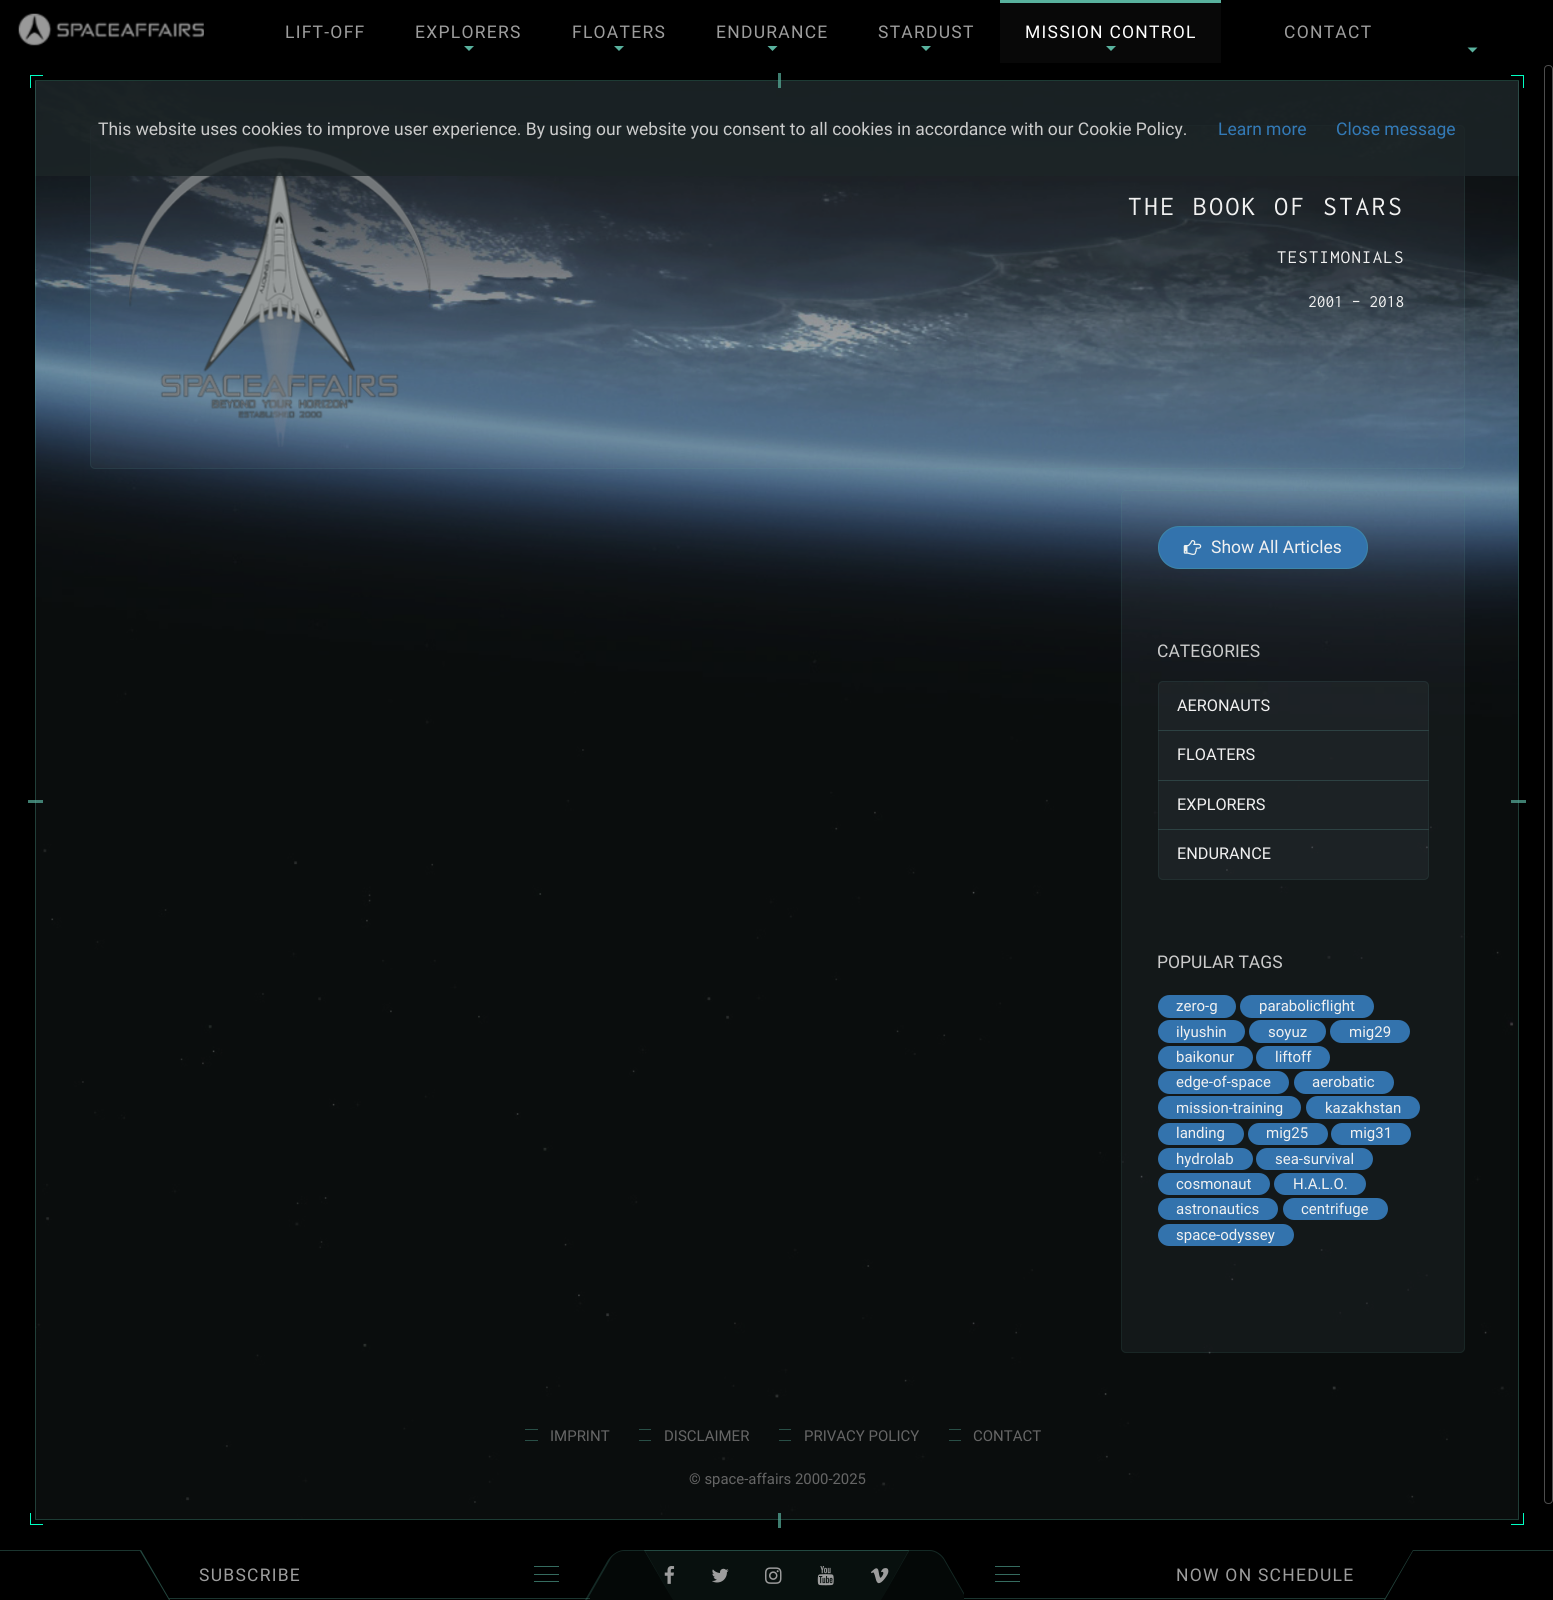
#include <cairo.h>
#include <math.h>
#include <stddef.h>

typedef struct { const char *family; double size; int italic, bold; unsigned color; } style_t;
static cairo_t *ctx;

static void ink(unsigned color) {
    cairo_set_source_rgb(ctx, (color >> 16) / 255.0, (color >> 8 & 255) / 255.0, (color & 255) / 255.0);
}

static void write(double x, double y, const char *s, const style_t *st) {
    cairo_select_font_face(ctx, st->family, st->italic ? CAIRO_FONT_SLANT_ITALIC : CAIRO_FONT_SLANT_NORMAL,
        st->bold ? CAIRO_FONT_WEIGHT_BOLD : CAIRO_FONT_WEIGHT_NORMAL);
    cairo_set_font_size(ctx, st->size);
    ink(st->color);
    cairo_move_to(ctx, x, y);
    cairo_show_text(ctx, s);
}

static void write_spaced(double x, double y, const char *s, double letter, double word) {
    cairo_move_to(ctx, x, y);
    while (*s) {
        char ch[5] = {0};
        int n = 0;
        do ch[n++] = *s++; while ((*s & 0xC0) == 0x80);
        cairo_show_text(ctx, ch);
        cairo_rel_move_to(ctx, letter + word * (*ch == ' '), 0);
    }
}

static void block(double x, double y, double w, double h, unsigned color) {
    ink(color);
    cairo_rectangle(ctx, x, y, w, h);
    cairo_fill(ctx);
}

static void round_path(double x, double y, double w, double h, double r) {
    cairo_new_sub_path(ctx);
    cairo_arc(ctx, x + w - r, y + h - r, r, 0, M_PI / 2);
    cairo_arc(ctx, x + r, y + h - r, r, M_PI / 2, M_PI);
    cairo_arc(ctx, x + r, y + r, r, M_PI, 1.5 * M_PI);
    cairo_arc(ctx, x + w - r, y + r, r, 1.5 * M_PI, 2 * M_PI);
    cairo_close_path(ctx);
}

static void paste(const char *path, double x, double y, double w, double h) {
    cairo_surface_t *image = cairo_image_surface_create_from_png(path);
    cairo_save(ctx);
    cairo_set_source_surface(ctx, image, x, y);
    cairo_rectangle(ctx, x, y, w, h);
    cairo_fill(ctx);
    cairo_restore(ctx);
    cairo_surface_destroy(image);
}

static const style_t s1 = {"Roboto", 17.5, 0, 0, 0xcccccc};
static const style_t s2 = {"Roboto", 17.5, 0, 0, 0x337ab7};
static const style_t s3 = {"Inconsolata", 17.5, 0, 0, 0xf1f1f1};
static const style_t s4 = {"Roboto", 17.5, 0, 0, 0xf1f1f1};
static const style_t s5 = {"Roboto", 16.25, 0, 0, 0xf1f1f1};
static const style_t s6 = {"Roboto", 15, 0, 0, 0xf1f1f1};
static const style_t s7 = {"Roboto", 15, 0, 0, 0x666666};
static const style_t s8 = {"Roboto", 14.9, 0, 0, 0x666666};

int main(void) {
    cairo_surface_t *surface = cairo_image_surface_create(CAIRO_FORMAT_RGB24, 1553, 1600);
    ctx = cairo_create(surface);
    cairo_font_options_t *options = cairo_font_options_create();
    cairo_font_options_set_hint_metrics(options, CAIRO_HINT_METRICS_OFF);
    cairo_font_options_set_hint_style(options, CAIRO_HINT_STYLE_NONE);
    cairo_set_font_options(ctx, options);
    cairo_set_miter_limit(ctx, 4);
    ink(0x000000);
    cairo_paint(ctx);
    paste("pic1.png", 18, 13, 186, 33);
    cairo_select_font_face(ctx, "Roboto", CAIRO_FONT_SLANT_NORMAL, CAIRO_FONT_WEIGHT_NORMAL);
    cairo_set_font_size(ctx, 17.5);
    ink(0x9d9d9d);
    write_spaced(285, 38, "LIFT-OFF", 1.25, 0);
    write_spaced(415, 38, "EXPLORERS", 1.25, 0);
    ink(0x59b29e);
    cairo_new_path(ctx);
    cairo_move_to(ctx, 464, 46);
    cairo_line_to(ctx, 474, 46);
    cairo_line_to(ctx, 469, 51);
    cairo_close_path(ctx);
    cairo_fill(ctx);
    ink(0x9d9d9d);
    write_spaced(572, 38, "FLOATERS", 1.25, 0);
    ink(0x59b29e);
    cairo_new_path(ctx);
    cairo_move_to(ctx, 614, 46);
    cairo_line_to(ctx, 624, 46);
    cairo_line_to(ctx, 619, 51);
    cairo_close_path(ctx);
    cairo_fill(ctx);
    ink(0x9d9d9d);
    write_spaced(716, 38, "ENDURANCE", 1.25, 0);
    ink(0x59b29e);
    cairo_new_path(ctx);
    cairo_move_to(ctx, 767.5, 46);
    cairo_line_to(ctx, 777.5, 46);
    cairo_line_to(ctx, 772.5, 51);
    cairo_close_path(ctx);
    cairo_fill(ctx);
    ink(0x9d9d9d);
    write_spaced(878, 38, "STARDUST", 1.25, 0);
    ink(0x59b29e);
    cairo_new_path(ctx);
    cairo_move_to(ctx, 921, 46);
    cairo_line_to(ctx, 931, 46);
    cairo_line_to(ctx, 926, 51);
    cairo_close_path(ctx);
    cairo_fill(ctx);
    block(1000, 3, 221, 60, 0x080808);
    block(1000, 0, 221, 3, 0x59b29e);
    ink(0xffffff);
    write_spaced(1025, 38, "MISSION CONTROL", 1.25, 0);
    ink(0x59b29e);
    cairo_new_path(ctx);
    cairo_move_to(ctx, 1106, 46);
    cairo_line_to(ctx, 1116, 46);
    cairo_line_to(ctx, 1111, 51);
    cairo_close_path(ctx);
    cairo_fill(ctx);
    ink(0x9d9d9d);
    write_spaced(1284, 38, "CONTACT", 1.25, 0);
    ink(0x59b29e);
    cairo_new_path(ctx);
    cairo_move_to(ctx, 1467.5, 47.5);
    cairo_line_to(ctx, 1477.5, 47.5);
    cairo_line_to(ctx, 1472.5, 52.5);
    cairo_close_path(ctx);
    cairo_fill(ctx);
    block(30, 75, 13, 1, 0x00ffc3);
    block(30, 75, 1, 13, 0x00ffc3);
    paste("pic2.png", 35, 81, 1484, 1438);
    cairo_set_source_rgba(ctx, 0.439, 0.502, 0.565, 0.1);
    round_path(90, 125, 1375, 344, 5);
    cairo_fill(ctx);
    round_path(90.5, 125.5, 1374, 343, 4.5);
    cairo_set_source_rgba(ctx, 0.349, 0.698, 0.62, 0.1);
    cairo_set_line_width(ctx, 1);
    cairo_stroke(ctx);
    paste("pic3.png", 129, 145, 302, 302);
    cairo_set_source_rgba(ctx, 0.098, 0.122, 0.133, 0.8);
    cairo_rectangle(ctx, 35, 81, 1484, 95);
    cairo_fill(ctx);
    cairo_set_source_rgba(ctx, 0.349, 0.698, 0.62, 0.7);
    cairo_rectangle(ctx, 778, 73, 3, 15);
    cairo_fill(ctx);
    block(1511, 75, 13, 1, 0x00ffc3);
    block(1523, 75, 1, 13, 0x00ffc3);
    cairo_set_source_rgba(ctx, 0.349, 0.698, 0.62, 0.7);
    cairo_rectangle(ctx, 28, 800, 15, 3);
    cairo_fill(ctx);
    cairo_rectangle(ctx, 1511, 800, 15, 3);
    cairo_fill(ctx);
    cairo_rectangle(ctx, 778, 1513, 3, 15);
    cairo_fill(ctx);
    cairo_set_source_rgba(ctx, 0.439, 0.502, 0.565, 0.1);
    round_path(1121, 490, 344, 863, 5);
    cairo_fill(ctx);
    round_path(1121.5, 490.5, 343, 862, 4.5);
    cairo_set_source_rgba(ctx, 0.349, 0.698, 0.62, 0.1);
    cairo_stroke(ctx);
    ink(0x3170ae);
    round_path(1158, 526, 210, 43, 21.5);
    cairo_fill(ctx);
    round_path(1158.5, 526.5, 209, 42, 21);
    cairo_set_source_rgba(ctx, 0.349, 0.698, 0.62, 0.3);
    cairo_stroke(ctx);
    paste("pic4.png", 1183, 540, 19, 15);
    cairo_set_source_rgba(ctx, 0.439, 0.502, 0.565, 0.1);
    cairo_new_path(ctx);
    cairo_move_to(ctx, 1163, 681);
    cairo_line_to(ctx, 1424, 681);
    cairo_curve_to(ctx, 1427, 681, 1429, 683, 1429, 686);
    cairo_line_to(ctx, 1429, 731);
    cairo_line_to(ctx, 1158, 731);
    cairo_line_to(ctx, 1158, 686);
    cairo_curve_to(ctx, 1158, 683, 1160, 681, 1163, 681);
    cairo_close_path(ctx);
    cairo_fill(ctx);
    cairo_new_path(ctx);
    cairo_move_to(ctx, 1163, 681.5);
    cairo_line_to(ctx, 1424, 681.5);
    cairo_curve_to(ctx, 1426.5, 681.5, 1428.5, 683.5, 1428.5, 686);
    cairo_line_to(ctx, 1428.5, 730.5);
    cairo_line_to(ctx, 1158.5, 730.5);
    cairo_line_to(ctx, 1158.5, 686);
    cairo_curve_to(ctx, 1158.5, 683.5, 1160.5, 681.5, 1163, 681.5);
    cairo_close_path(ctx);
    cairo_set_source_rgba(ctx, 0.349, 0.698, 0.62, 0.1);
    cairo_stroke(ctx);
    cairo_set_source_rgba(ctx, 0.439, 0.502, 0.565, 0.1);
    cairo_rectangle(ctx, 1158, 730, 271, 51);
    cairo_fill(ctx);
    cairo_rectangle(ctx, 1158.5, 730.5, 270, 50);
    cairo_set_source_rgba(ctx, 0.349, 0.698, 0.62, 0.1);
    cairo_stroke(ctx);
    cairo_set_source_rgba(ctx, 0.439, 0.502, 0.565, 0.1);
    cairo_rectangle(ctx, 1158, 780, 271, 50);
    cairo_fill(ctx);
    cairo_rectangle(ctx, 1158.5, 780.5, 270, 49);
    cairo_set_source_rgba(ctx, 0.349, 0.698, 0.62, 0.1);
    cairo_stroke(ctx);
    cairo_set_source_rgba(ctx, 0.439, 0.502, 0.565, 0.1);
    cairo_new_path(ctx);
    cairo_move_to(ctx, 1158, 829);
    cairo_line_to(ctx, 1429, 829);
    cairo_line_to(ctx, 1429, 875);
    cairo_curve_to(ctx, 1429, 878, 1427, 880, 1424, 880);
    cairo_line_to(ctx, 1163, 880);
    cairo_curve_to(ctx, 1160, 880, 1158, 878, 1158, 875);
    cairo_close_path(ctx);
    cairo_fill(ctx);
    cairo_new_path(ctx);
    cairo_move_to(ctx, 1158.5, 829.5);
    cairo_line_to(ctx, 1428.5, 829.5);
    cairo_line_to(ctx, 1428.5, 875);
    cairo_curve_to(ctx, 1428.5, 877.5, 1426.5, 879.5, 1424, 879.5);
    cairo_line_to(ctx, 1163, 879.5);
    cairo_curve_to(ctx, 1160.5, 879.5, 1158.5, 877.5, 1158.5, 875);
    cairo_close_path(ctx);
    cairo_set_source_rgba(ctx, 0.349, 0.698, 0.62, 0.1);
    cairo_stroke(ctx);
    ink(0x3170ae);
    round_path(1158, 995, 78, 23, 11.5);
    cairo_fill(ctx);
    round_path(1240, 995, 134, 23, 11.5);
    cairo_fill(ctx);
    round_path(1158, 1020, 87, 23, 11.5);
    cairo_fill(ctx);
    round_path(1249, 1020, 77, 23, 11.5);
    cairo_fill(ctx);
    round_path(1330, 1020, 80, 23, 11.5);
    cairo_fill(ctx);
    round_path(1158, 1046, 95, 23, 11.5);
    cairo_fill(ctx);
    round_path(1256, 1046, 74, 23, 11.5);
    cairo_fill(ctx);
    round_path(1158, 1071, 131, 23, 11.5);
    cairo_fill(ctx);
    round_path(1294, 1071, 100, 23, 11.5);
    cairo_fill(ctx);
    round_path(1158, 1096, 143, 23, 11.5);
    cairo_fill(ctx);
    round_path(1306, 1096, 114, 23, 11.5);
    cairo_fill(ctx);
    round_path(1158, 1123, 86, 22, 11);
    cairo_fill(ctx);
    round_path(1248, 1123, 80, 22, 11);
    cairo_fill(ctx);
    round_path(1331, 1123, 80, 22, 11);
    cairo_fill(ctx);
    round_path(1158, 1148, 95, 22, 11);
    cairo_fill(ctx);
    round_path(1256, 1148, 117, 22, 11);
    cairo_fill(ctx);
    round_path(1158, 1173, 112, 22, 11);
    cairo_fill(ctx);
    round_path(1274, 1173, 92, 22, 11);
    cairo_fill(ctx);
    round_path(1158, 1198, 120, 22, 11);
    cairo_fill(ctx);
    round_path(1283, 1198, 105, 22, 11);
    cairo_fill(ctx);
    round_path(1158, 1224, 136, 22, 11);
    cairo_fill(ctx);
    block(525, 1429, 13, 1, 0x274a43);
    block(525, 1440, 13, 1, 0x274a43);
    block(639, 1429, 12, 1, 0x274a43);
    block(639, 1440, 12, 1, 0x274a43);
    block(779, 1429, 12, 1, 0x274a43);
    block(779, 1440, 12, 1, 0x274a43);
    block(949, 1429, 12, 1, 0x274a43);
    block(949, 1440, 12, 1, 0x274a43);
    cairo_set_source_rgba(ctx, 0.349, 0.698, 0.62, 0.05);
    cairo_rectangle(ctx, 35, 80, 1484, 1440);
    cairo_fill(ctx);
    cairo_rectangle(ctx, 35.5, 80.5, 1483, 1439);
    cairo_set_source_rgba(ctx, 0.349, 0.698, 0.62, 0.3);
    cairo_stroke(ctx);
    block(30, 1524, 13, 1, 0x00ffc3);
    block(30, 1513, 1, 12, 0x00ffc3);
    block(1523, 1513, 1, 12, 0x00ffc3);
    block(1511, 1524, 13, 1, 0x00ffc3);
    write(98, 135, "This website uses cookies to improve user experience. By using our website you consent to all cookies in accordance with our Cookie Policy.", &s1);
    write(1218, 135, "Learn more", &s2);
    write(1336, 135, "Close message", &s2);
    cairo_select_font_face(ctx, "Inconsolata", CAIRO_FONT_SLANT_NORMAL, CAIRO_FONT_WEIGHT_NORMAL);
    cairo_set_font_size(ctx, 27.5);
    ink(0xf1f1f1);
    write_spaced(1128, 215, "THE BOOK OF STARS", 2.5, 0);
    cairo_set_font_size(ctx, 18.75);
    write_spaced(1277, 263, "TESTIMONIALS", 1.25, 0);
    write(1308, 307, "2001 - 2018", &s3);
    write(1211, 553, "Show All Articles", &s4);
    write(1157, 657, "CATEGORIES", &s1);
    write(1177, 711, "AERONAUTS", &s5);
    write(1177, 760, "FLOATERS", &s5);
    write(1177, 810, "EXPLORERS", &s5);
    write(1177, 859, "ENDURANCE", &s5);
    write(1157, 968, "POPULAR TAGS", &s1);
    write(1176, 1011, "zero-g", &s6);
    write(1259, 1011, "parabolicflight", &s6);
    write(1176, 1037, "ilyushin", &s6);
    write(1268, 1037, "soyuz", &s6);
    write(1349, 1037, "mig29", &s6);
    write(1176, 1062, "baikonur", &s6);
    write(1275, 1062, "liftoff", &s6);
    write(1176, 1087, "edge-of-space", &s6);
    write(1312, 1087, "aerobatic", &s6);
    write(1176, 1113, "mission-training", &s6);
    write(1325, 1113, "kazakhstan", &s6);
    write(1176, 1138, "landing", &s6);
    write(1266, 1138, "mig25", &s6);
    write(1350, 1138, "mig31", &s6);
    write(1176, 1164, "hydrolab", &s6);
    write(1275, 1164, "sea-survival", &s6);
    write(1176, 1189, "cosmonaut", &s6);
    write(1293, 1189, "H.A.L.O.", &s6);
    write(1176, 1214, "astronautics", &s6);
    write(1301, 1214, "centrifuge", &s6);
    write(1176, 1240, "space-odyssey", &s6);
    write(550, 1441, "IMPRINT", &s7);
    write(664, 1441, "DISCLAIMER", &s7);
    write(804, 1441, "PRIVACY POLICY", &s7);
    write(973, 1441, "CONTACT", &s7);
    write(689, 1484, "© space-affairs 2000-2025", &s8);
    round_path(1544.5, 65.5, 8, 1438, 3.5);
    ink(0x4d4d4d);
    cairo_stroke(ctx);
    block(164, 1598, 426, 1, 0x1b352f);
    ink(0x000000);
    cairo_new_path(ctx);
    cairo_move_to(ctx, -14, 1550);
    cairo_line_to(ctx, 141, 1550);
    cairo_line_to(ctx, 170, 1600);
    cairo_line_to(ctx, 14, 1600);
    cairo_close_path(ctx);
    cairo_fill(ctx);
    ink(0x1b352f);
    cairo_new_path(ctx);
    cairo_move_to(ctx, -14, 1550);
    cairo_line_to(ctx, 141, 1550);
    cairo_line_to(ctx, 140, 1551);
    cairo_line_to(ctx, -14, 1551);
    cairo_close_path(ctx);
    cairo_fill(ctx);
    cairo_set_source_rgba(ctx, 0.349, 0.698, 0.62, 0.4);
    cairo_new_path(ctx);
    cairo_move_to(ctx, 141, 1550);
    cairo_line_to(ctx, 170, 1600);
    cairo_line_to(ctx, 169, 1600);
    cairo_line_to(ctx, 140, 1551);
    cairo_close_path(ctx);
    cairo_fill(ctx);
    cairo_set_font_size(ctx, 17.5);
    ink(0x9d9d9d);
    write_spaced(199, 1581, "SUBSCRIBE", 1.25, 0);
    block(534, 1574, 25, 1, 0x356b5f);
    block(534, 1581, 25, 1, 0x356b5f);
    block(534, 1566, 25, 1, 0x356b5f);
    cairo_set_source_rgba(ctx, 0.349, 0.698, 0.62, 0.05);
    cairo_new_path(ctx);
    cairo_move_to(ctx, 624, 1550);
    cairo_line_to(ctx, 909, 1550);
    cairo_line_to(ctx, 881, 1600);
    cairo_line_to(ctx, 585, 1600);
    cairo_line_to(ctx, 608, 1560);
    cairo_curve_to(ctx, 612, 1554, 619, 1550, 624, 1550);
    cairo_close_path(ctx);
    cairo_fill(ctx);
    cairo_set_source_rgba(ctx, 0.349, 0.698, 0.62, 0.2);
    cairo_set_fill_rule(ctx, CAIRO_FILL_RULE_EVEN_ODD);
    cairo_new_path(ctx);
    cairo_move_to(ctx, 624, 1550);
    cairo_line_to(ctx, 909, 1550);
    cairo_line_to(ctx, 881, 1600);
    cairo_line_to(ctx, 585, 1600);
    cairo_line_to(ctx, 608, 1560);
    cairo_curve_to(ctx, 612, 1554, 619, 1550, 624, 1550);
    cairo_close_path(ctx);
    cairo_move_to(ctx, 623, 1551);
    cairo_line_to(ctx, 909, 1551);
    cairo_line_to(ctx, 881, 1600);
    cairo_line_to(ctx, 587, 1600);
    cairo_line_to(ctx, 610, 1560);
    cairo_curve_to(ctx, 612, 1555, 619, 1551, 623, 1551);
    cairo_close_path(ctx);
    cairo_fill(ctx);
    cairo_set_source_rgba(ctx, 0.349, 0.698, 0.62, 0.05);
    cairo_set_fill_rule(ctx, CAIRO_FILL_RULE_WINDING);
    cairo_new_path(ctx);
    cairo_move_to(ctx, 644, 1550);
    cairo_line_to(ctx, 930, 1550);
    cairo_curve_to(ctx, 935, 1550, 942, 1554, 945, 1560);
    cairo_line_to(ctx, 968, 1600);
    cairo_line_to(ctx, 673, 1600);
    cairo_close_path(ctx);
    cairo_fill(ctx);
    cairo_set_source_rgba(ctx, 0.349, 0.698, 0.62, 0.2);
    cairo_set_fill_rule(ctx, CAIRO_FILL_RULE_EVEN_ODD);
    cairo_new_path(ctx);
    cairo_move_to(ctx, 644, 1550);
    cairo_line_to(ctx, 930, 1550);
    cairo_curve_to(ctx, 935, 1550, 942, 1554, 945, 1560);
    cairo_line_to(ctx, 968, 1600);
    cairo_line_to(ctx, 673, 1600);
    cairo_close_path(ctx);
    cairo_move_to(ctx, 645, 1551);
    cairo_line_to(ctx, 930, 1551);
    cairo_curve_to(ctx, 935, 1551, 941, 1555, 944, 1560);
    cairo_line_to(ctx, 967, 1600);
    cairo_line_to(ctx, 673, 1600);
    cairo_close_path(ctx);
    cairo_fill(ctx);
    paste("pic5.png", 664, 1566, 11, 18);
    paste("pic6.png", 712, 1568, 17, 15);
    paste("pic7.png", 765, 1567, 17, 17);
    paste("pic8.png", 817, 1566, 17, 20);
    paste("pic9.png", 871, 1568, 18, 16);
    block(964, 1593, 4, 7, 0x000000);
    block(995, 1574, 25, 1, 0x356b5f);
    block(995, 1581, 25, 1, 0x356b5f);
    block(995, 1566, 25, 1, 0x356b5f);
    ink(0x9d9d9d);
    write_spaced(1176, 1581, "NOW ON SCHEDULE", 1.25, 0);
    block(964, 1598, 427, 1, 0x1b352f);
    ink(0x000000);
    cairo_set_fill_rule(ctx, CAIRO_FILL_RULE_WINDING);
    cairo_new_path(ctx);
    cairo_move_to(ctx, 1413, 1550);
    cairo_line_to(ctx, 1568, 1550);
    cairo_line_to(ctx, 1539, 1600);
    cairo_line_to(ctx, 1384, 1600);
    cairo_close_path(ctx);
    cairo_fill(ctx);
    ink(0x1b352f);
    cairo_new_path(ctx);
    cairo_move_to(ctx, 1413, 1550);
    cairo_line_to(ctx, 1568, 1550);
    cairo_line_to(ctx, 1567, 1551);
    cairo_line_to(ctx, 1413, 1551);
    cairo_close_path(ctx);
    cairo_fill(ctx);
    ink(0x24473f);
    cairo_new_path(ctx);
    cairo_move_to(ctx, 1384, 1600);
    cairo_line_to(ctx, 1413, 1550);
    cairo_line_to(ctx, 1413, 1551);
    cairo_line_to(ctx, 1385, 1600);
    cairo_close_path(ctx);
    cairo_fill(ctx);
    cairo_surface_write_to_png(surface, "screenshot.png");
    cairo_font_options_destroy(options);
    cairo_destroy(ctx);
    cairo_surface_destroy(surface);
    return 0;
}
